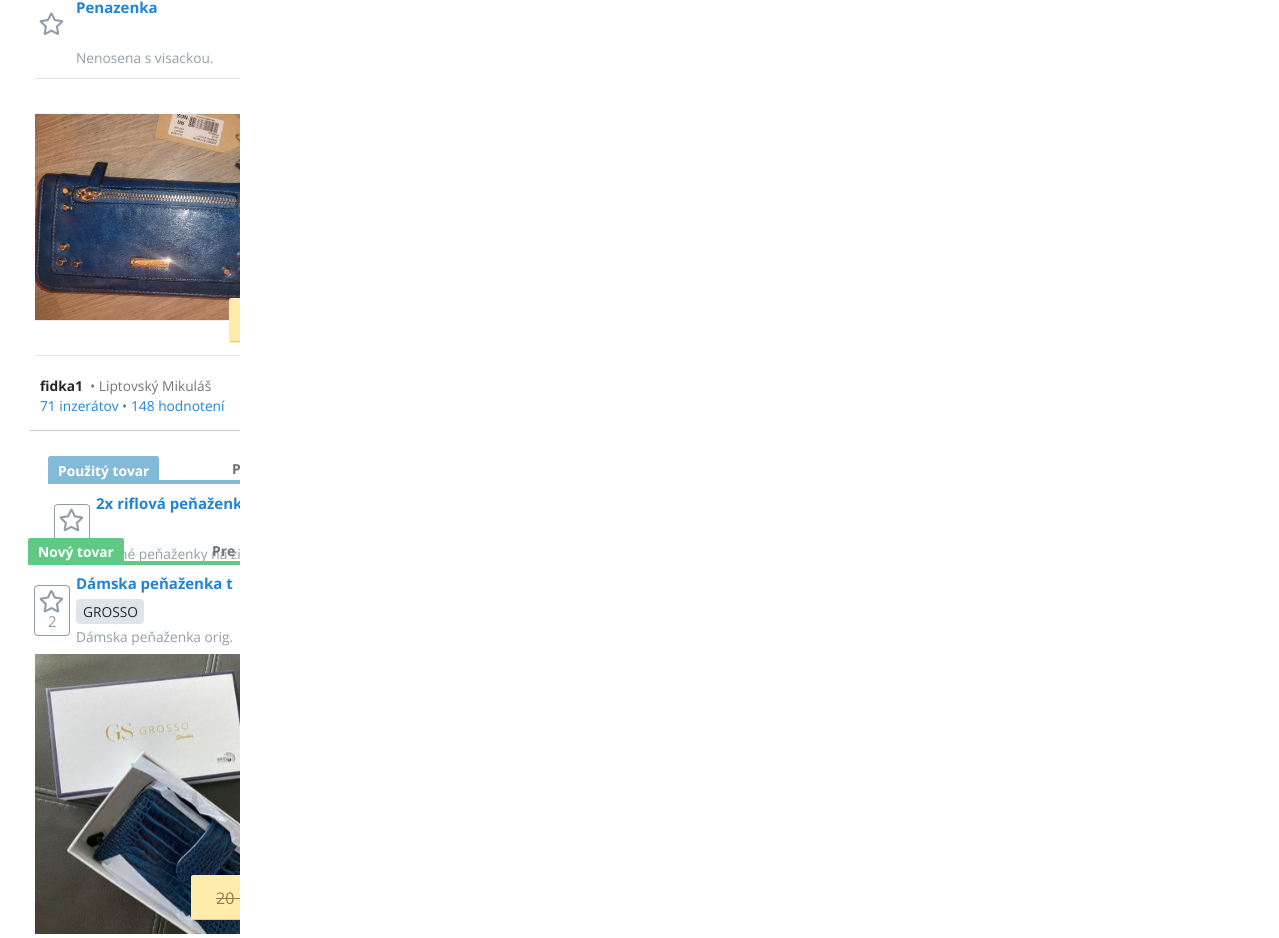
#include <cairo.h>
#include <math.h>
#include <stddef.h>

typedef struct { const char *family; double size; int italic, bold; unsigned color; } style_t;
static cairo_t *ctx;

static void ink(unsigned color) {
    cairo_set_source_rgb(ctx, (color >> 16) / 255.0, (color >> 8 & 255) / 255.0, (color & 255) / 255.0);
}

static void write(double x, double y, const char *s, const style_t *st) {
    cairo_select_font_face(ctx, st->family, st->italic ? CAIRO_FONT_SLANT_ITALIC : CAIRO_FONT_SLANT_NORMAL,
        st->bold ? CAIRO_FONT_WEIGHT_BOLD : CAIRO_FONT_WEIGHT_NORMAL);
    cairo_set_font_size(ctx, st->size);
    ink(st->color);
    cairo_move_to(ctx, x, y);
    cairo_show_text(ctx, s);
}

static void block(double x, double y, double w, double h, unsigned color) {
    ink(color);
    cairo_rectangle(ctx, x, y, w, h);
    cairo_fill(ctx);
}

static void round_path(double x, double y, double w, double h, double r) {
    cairo_new_sub_path(ctx);
    cairo_arc(ctx, x + w - r, y + h - r, r, 0, M_PI / 2);
    cairo_arc(ctx, x + r, y + h - r, r, M_PI / 2, M_PI);
    cairo_arc(ctx, x + r, y + r, r, M_PI, 1.5 * M_PI);
    cairo_arc(ctx, x + w - r, y + r, r, 1.5 * M_PI, 2 * M_PI);
    cairo_close_path(ctx);
}

static void paste(const char *path, double x, double y, double w, double h) {
    cairo_surface_t *image = cairo_image_surface_create_from_png(path);
    cairo_save(ctx);
    cairo_set_source_surface(ctx, image, x, y);
    cairo_rectangle(ctx, x, y, w, h);
    cairo_fill(ctx);
    cairo_restore(ctx);
    cairo_surface_destroy(image);
}

static const style_t s1 = {"Open Sans", 15, 0, 1, 0x1e85d4};
static const style_t s2 = {"Open Sans", 13.75, 0, 0, 0x909ea8};
static const style_t s3 = {"Open Sans", 13.75, 0, 1, 0x262729};
static const style_t s4 = {"Open Sans", 13.75, 0, 0, 0x73777a};
static const style_t s5 = {"Open Sans", 13.75, 0, 0, 0x1e85d4};
static const style_t s6 = {"Open Sans", 13.75, 0, 1, 0xffffff};
static const style_t s7 = {"Open Sans", 13.75, 0, 1, 0x6c7175};
static const style_t s8 = {"Open Sans", 15, 0, 0, 0x909ea8};
static const style_t s9 = {"Open Sans", 13.75, 0, 0, 0x262729};
static const style_t s10 = {"Open Sans", 16, 0, 0, 0x897d52};

int main(void) {
    cairo_surface_t *surface = cairo_image_surface_create(CAIRO_FORMAT_RGB24, 1279, 938);
    ctx = cairo_create(surface);
    cairo_font_options_t *options = cairo_font_options_create();
    cairo_font_options_set_hint_metrics(options, CAIRO_HINT_METRICS_OFF);
    cairo_font_options_set_hint_style(options, CAIRO_HINT_STYLE_NONE);
    cairo_set_font_options(ctx, options);
    cairo_set_miter_limit(ctx, 4);
    ink(0xffffff);
    cairo_paint(ctx);
    paste("pic1.png", 39, 12, 25, 23);
    write(76, 13, "Penazenka", &s1);
    write(76, 63, "Nenosena s visackou.", &s2);
    block(35, 78, 205, 1, 0xdfe4e8);
    block(35, 355, 205, 1, 0xdfe4e8);
    block(35, 320, 194, 1, 0xeaebec);
    block(35, 113, 205, 1, 0xf3f3f4);
    paste("pic2.png", 35, 114, 205, 206);
    ink(0xffecab);
    cairo_new_path(ctx);
    cairo_move_to(ctx, 231.5, 298);
    cairo_line_to(ctx, 240, 298);
    cairo_line_to(ctx, 240, 343);
    cairo_line_to(ctx, 231.5, 343);
    cairo_curve_to(ctx, 230, 343, 229, 342, 229, 340.5);
    cairo_line_to(ctx, 229, 300.5);
    cairo_curve_to(ctx, 229, 299, 230, 298, 231.5, 298);
    cairo_close_path(ctx);
    cairo_fill(ctx);
    block(230, 341, 10, 1, 0xe2cf8c);
    block(30, 430, 210, 1, 0xc3ccd4);
    write(40, 391, "fidka1", &s3);
    write(90, 391, "• Liptovský Mikuláš", &s4);
    write(40, 411, "71 inzerátov", &s5);
    write(122, 411, "•", &s4);
    write(131, 411, "148 hodnotení", &s5);
    block(48, 480, 192, 4, 0x83bad7);
    cairo_new_path(ctx);
    cairo_move_to(ctx, 50.5, 456);
    cairo_line_to(ctx, 156.5, 456);
    cairo_curve_to(ctx, 158, 456, 159, 457, 159, 458.5);
    cairo_line_to(ctx, 159, 480);
    cairo_line_to(ctx, 48, 480);
    cairo_line_to(ctx, 48, 458.5);
    cairo_curve_to(ctx, 48, 457, 49, 456, 50.5, 456);
    cairo_close_path(ctx);
    cairo_fill(ctx);
    write(58, 476, "Použitý tovar", &s6);
    write(232, 474, "P", &s7);
    round_path(54.5, 504.5, 35, 50, 3.5);
    ink(0x909ea8);
    cairo_set_line_width(ctx, 1);
    cairo_stroke(ctx);
    paste("pic3.png", 59, 508, 25, 24);
    cairo_save(ctx);
    cairo_rectangle(ctx, 96, 491, 144, 25);
    cairo_clip(ctx);
    write(96, 509, "2x riflová peňaženk", &s1);
    cairo_restore(ctx);
    cairo_save(ctx);
    cairo_rectangle(ctx, 96, 541, 144, 25);
    cairo_clip(ctx);
    write(119, 559, "né peňaženky na zi", &s2);
    cairo_restore(ctx);
    block(28, 561, 212, 4, 0x60c983);
    cairo_new_path(ctx);
    cairo_move_to(ctx, 30.5, 538);
    cairo_line_to(ctx, 121.5, 538);
    cairo_curve_to(ctx, 123, 538, 124, 539, 124, 540.5);
    cairo_line_to(ctx, 124, 561);
    cairo_line_to(ctx, 28, 561);
    cairo_line_to(ctx, 28, 540.5);
    cairo_curve_to(ctx, 28, 539, 29, 538, 30.5, 538);
    cairo_close_path(ctx);
    cairo_fill(ctx);
    write(38, 557, "Nový tovar", &s6);
    write(212, 556, "Pre", &s7);
    round_path(34.5, 585.5, 35, 50, 3.5);
    ink(0x909ea8);
    cairo_stroke(ctx);
    paste("pic4.png", 39, 590, 25, 23);
    write(48, 627, "2", &s8);
    write(76, 589, "Dámska peňaženka t", &s1);
    ink(0xdfe4e8);
    round_path(76, 599, 68, 25, 4);
    cairo_fill(ctx);
    write(83, 617, "GROSSO", &s9);
    write(76, 642, "Dámska peňaženka orig.", &s2);
    paste("pic5.png", 35, 654, 205, 280);
    ink(0xffecab);
    cairo_new_path(ctx);
    cairo_move_to(ctx, 193.5, 875);
    cairo_line_to(ctx, 240, 875);
    cairo_line_to(ctx, 240, 920);
    cairo_line_to(ctx, 193.5, 920);
    cairo_curve_to(ctx, 192, 920, 191, 919, 191, 917.5);
    cairo_line_to(ctx, 191, 877.5);
    cairo_curve_to(ctx, 191, 876, 192, 875, 193.5, 875);
    cairo_close_path(ctx);
    cairo_fill(ctx);
    block(193, 919, 47, 1, 0xe2cf8c);
    write(216, 904, "20", &s10);
    block(216, 898, 24, 1, 0x897d52);
    cairo_surface_write_to_png(surface, "screenshot.png");
    cairo_font_options_destroy(options);
    cairo_destroy(ctx);
    cairo_surface_destroy(surface);
    return 0;
}
